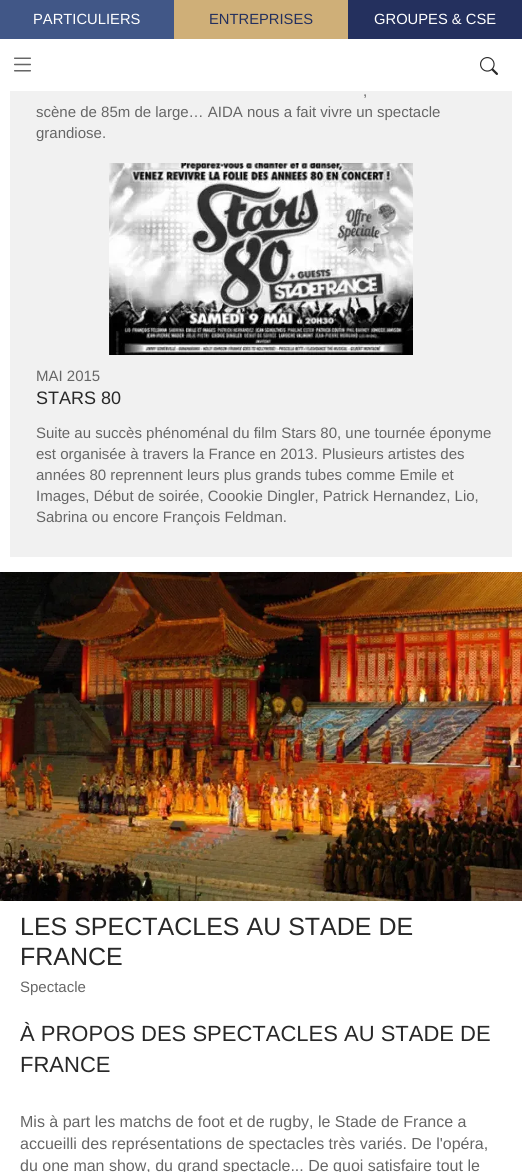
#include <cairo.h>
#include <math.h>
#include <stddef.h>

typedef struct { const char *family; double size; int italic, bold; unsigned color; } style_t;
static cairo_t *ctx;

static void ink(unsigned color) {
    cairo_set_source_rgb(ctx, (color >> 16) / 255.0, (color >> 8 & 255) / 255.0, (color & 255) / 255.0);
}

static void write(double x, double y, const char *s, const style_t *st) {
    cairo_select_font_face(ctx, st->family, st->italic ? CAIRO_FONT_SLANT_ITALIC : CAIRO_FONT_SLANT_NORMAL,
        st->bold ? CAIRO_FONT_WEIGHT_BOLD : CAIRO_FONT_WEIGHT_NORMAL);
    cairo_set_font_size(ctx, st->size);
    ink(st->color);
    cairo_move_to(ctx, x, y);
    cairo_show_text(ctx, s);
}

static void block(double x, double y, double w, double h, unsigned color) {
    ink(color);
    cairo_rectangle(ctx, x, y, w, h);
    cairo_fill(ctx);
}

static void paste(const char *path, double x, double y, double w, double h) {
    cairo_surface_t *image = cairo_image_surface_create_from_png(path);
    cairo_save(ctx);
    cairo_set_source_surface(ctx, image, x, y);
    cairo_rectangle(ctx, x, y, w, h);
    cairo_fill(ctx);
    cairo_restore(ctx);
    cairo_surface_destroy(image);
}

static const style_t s1 = {"Liberation Sans", 14.75, 0, 0, 0xffffff};
static const style_t s2 = {"Liberation Sans", 14.75, 0, 0, 0x24305e};
static const style_t s3 = {"Liberation Sans", 15, 0, 0, 0x666666};
static const style_t s4 = {"Liberation Sans", 18, 0, 0, 0x282828};
static const style_t s5 = {"Liberation Sans", 25, 0, 0, 0x282828};
static const style_t s6 = {"Liberation Sans", 22, 0, 0, 0x282828};
static const style_t s7 = {"Liberation Sans", 16, 0, 0, 0x666666};

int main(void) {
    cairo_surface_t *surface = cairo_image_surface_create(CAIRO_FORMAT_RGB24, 522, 1172);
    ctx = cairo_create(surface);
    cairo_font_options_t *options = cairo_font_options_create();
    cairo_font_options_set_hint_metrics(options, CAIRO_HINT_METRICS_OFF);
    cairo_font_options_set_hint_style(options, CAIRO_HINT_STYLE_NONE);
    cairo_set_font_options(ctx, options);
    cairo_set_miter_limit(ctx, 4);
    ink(0xffffff);
    cairo_paint(ctx);
    block(0, 0, 174, 39, 0x415787);
    write(33, 24, "PARTICULIERS", &s1);
    block(174, 0, 174, 39, 0xcfaf78);
    write(209, 24, "ENTREPRISES", &s2);
    block(348, 0, 174, 39, 0x24305e);
    write(374, 24, "GROUPES & CSE", &s1);
    paste("pic1.png", 480, 57, 18, 18);
    paste("pic2.png", 14, 57, 17, 15);
    block(10, 91, 502, 466, 0xf1f1f1);
    write(363, 96, ",", &s3);
    write(36, 117, "scène de 85m de large… AIDA nous a fait vivre un spectacle", &s3);
    write(36, 138, "grandiose.", &s3);
    paste("pic3.png", 109, 163, 304, 192);
    write(36, 381, "MAI 2015", &s3);
    write(36, 404, "STARS 80", &s4);
    write(36, 438, "Suite au succès phénoménal du film Stars 80, une tournée éponyme", &s3);
    write(36, 459, "est organisée à travers la France en 2013. Plusieurs artistes des", &s3);
    write(36, 480, "années 80 reprennent leurs plus grands tubes comme Emile et", &s3);
    write(36, 501, "Images, Début de soirée, Coookie Dingler, Patrick Hernandez, Lio,", &s3);
    write(36, 522, "Sabrina ou encore François Feldman.", &s3);
    paste("pic4.png", 0, 572, 522, 329);
    write(20, 935, "LES SPECTACLES AU STADE DE", &s5);
    write(20, 965, "FRANCE", &s5);
    write(20, 992, "Spectacle", &s3);
    write(20, 1041, "À PROPOS DES SPECTACLES AU STADE DE", &s6);
    write(20, 1072, "FRANCE", &s6);
    write(20, 1127, "Mis à part les matchs de foot et de rugby, le Stade de France a", &s7);
    write(20, 1149, "accueilli des représentations de spectacles très variés. De l'opéra,", &s7);
    write(20, 1171, "du one man show, du grand spectacle... De quoi satisfaire tout le", &s7);
    cairo_surface_write_to_png(surface, "screenshot.png");
    cairo_font_options_destroy(options);
    cairo_destroy(ctx);
    cairo_surface_destroy(surface);
    return 0;
}
